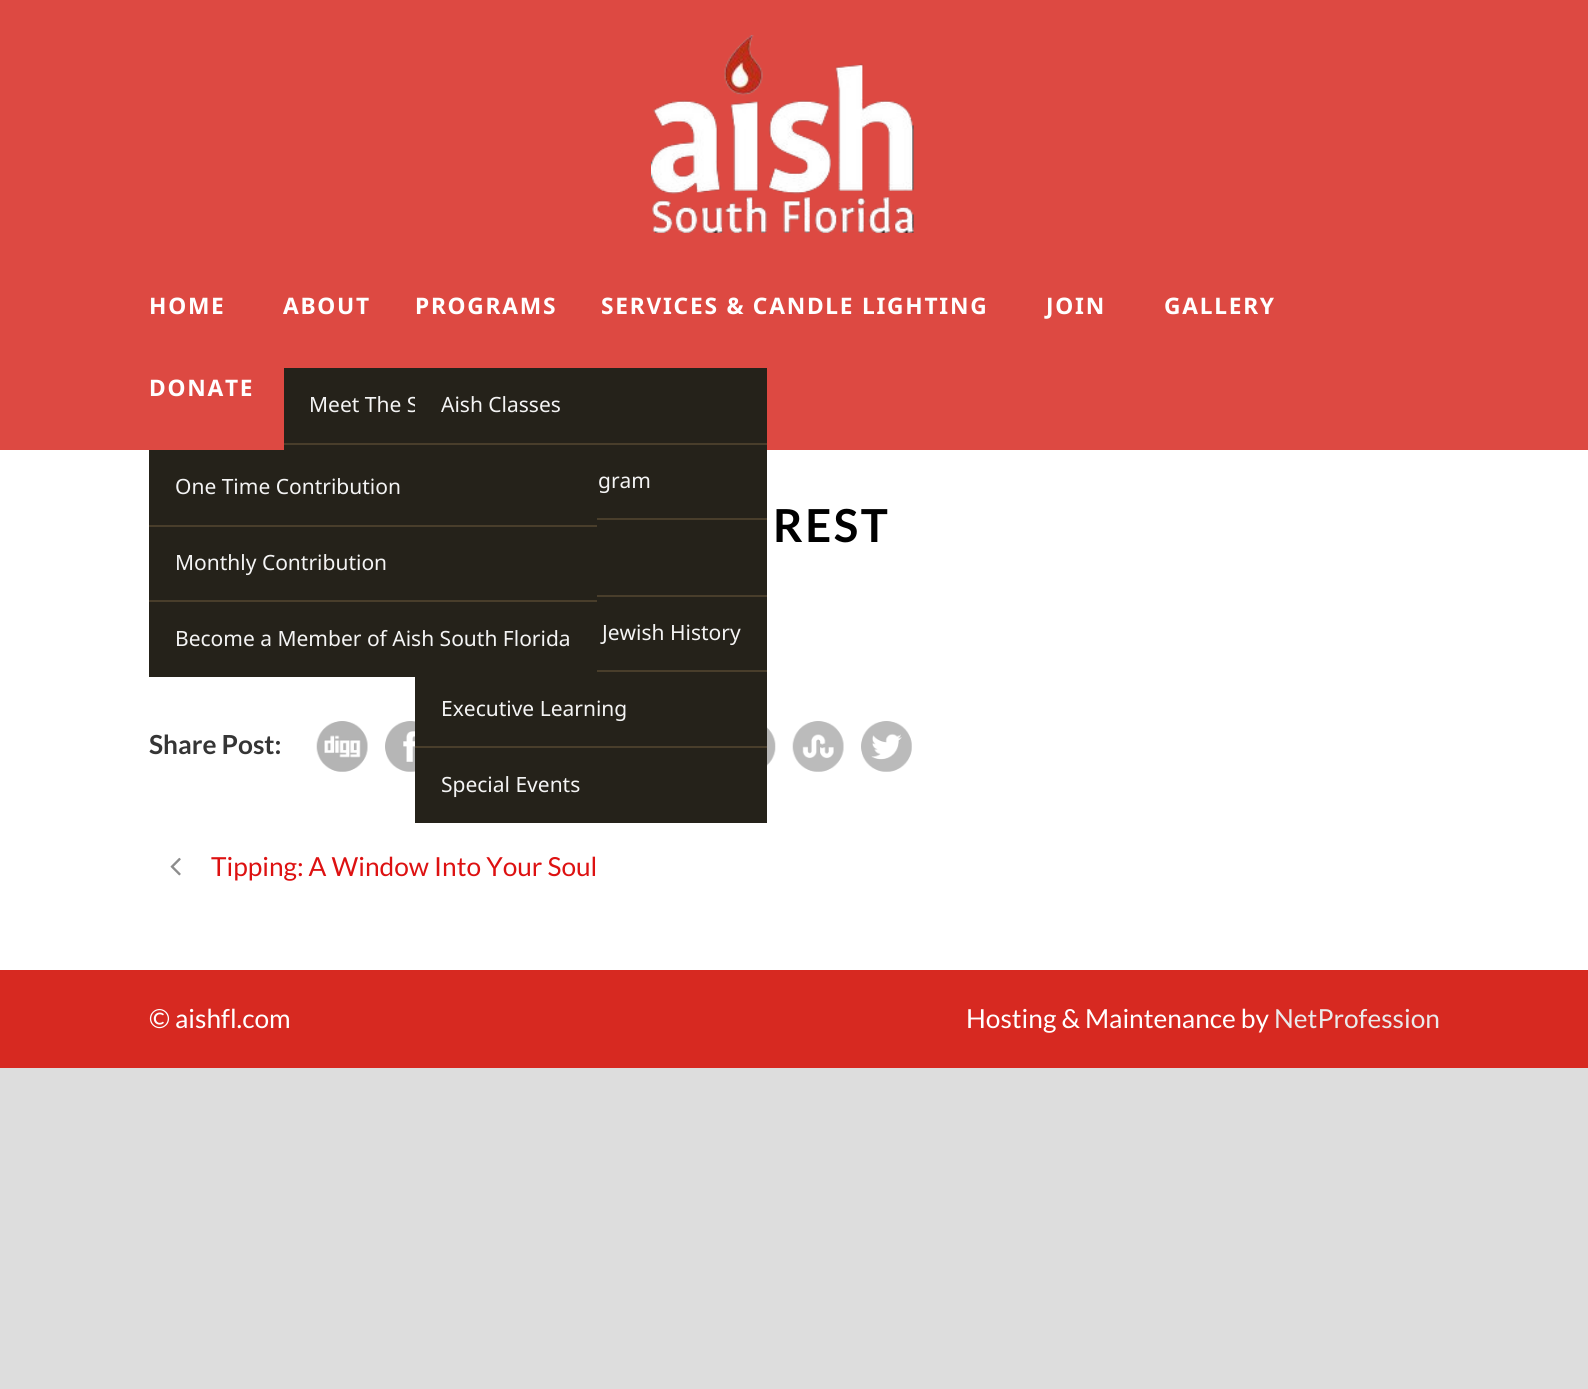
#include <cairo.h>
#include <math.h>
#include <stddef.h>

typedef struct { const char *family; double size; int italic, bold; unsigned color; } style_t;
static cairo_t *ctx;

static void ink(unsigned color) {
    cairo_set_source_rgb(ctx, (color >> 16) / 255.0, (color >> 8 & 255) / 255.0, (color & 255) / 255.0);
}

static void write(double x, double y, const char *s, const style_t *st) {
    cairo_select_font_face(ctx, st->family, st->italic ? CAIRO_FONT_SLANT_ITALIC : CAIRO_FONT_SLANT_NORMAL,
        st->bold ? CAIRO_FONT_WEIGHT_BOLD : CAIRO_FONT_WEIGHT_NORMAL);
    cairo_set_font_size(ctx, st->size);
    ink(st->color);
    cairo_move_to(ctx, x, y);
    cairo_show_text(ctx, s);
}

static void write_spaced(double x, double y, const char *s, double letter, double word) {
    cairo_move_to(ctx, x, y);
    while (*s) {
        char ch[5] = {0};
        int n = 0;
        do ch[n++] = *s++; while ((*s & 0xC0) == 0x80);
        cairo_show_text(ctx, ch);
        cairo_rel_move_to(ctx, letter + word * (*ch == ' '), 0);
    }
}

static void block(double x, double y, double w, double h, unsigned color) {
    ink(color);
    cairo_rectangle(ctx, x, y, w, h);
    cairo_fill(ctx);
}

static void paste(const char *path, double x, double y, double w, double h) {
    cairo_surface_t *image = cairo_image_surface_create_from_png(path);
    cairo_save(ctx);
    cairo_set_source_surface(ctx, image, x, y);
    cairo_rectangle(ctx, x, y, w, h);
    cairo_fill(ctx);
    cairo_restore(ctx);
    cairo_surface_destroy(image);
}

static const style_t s1 = {"Noto Sans", 21, 0, 0, 0xf4f4f4};
static const style_t s2 = {"Lato", 26.25, 0, 1, 0x353535};
static const style_t s3 = {"Lato", 26.25, 0, 0, 0xdd1111};
static const style_t s4 = {"Lato", 26.25, 0, 0, 0xffffff};
static const style_t s5 = {"Lato", 26.25, 0, 0, 0xeaeaea};

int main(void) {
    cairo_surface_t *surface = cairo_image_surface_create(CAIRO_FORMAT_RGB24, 1588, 1389);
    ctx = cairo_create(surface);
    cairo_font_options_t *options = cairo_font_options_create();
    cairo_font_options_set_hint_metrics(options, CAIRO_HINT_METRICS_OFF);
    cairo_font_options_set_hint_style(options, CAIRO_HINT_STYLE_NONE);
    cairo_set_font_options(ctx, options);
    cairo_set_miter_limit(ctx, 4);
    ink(0xdddddd);
    cairo_paint(ctx);
    block(0, 450, 1588, 520, 0xffffff);
    block(0, 0, 1588, 450, 0xdd4942);
    paste("pic1.png", 651, 35, 263, 198);
    cairo_select_font_face(ctx, "Noto Sans", CAIRO_FONT_SLANT_NORMAL, CAIRO_FONT_WEIGHT_BOLD);
    cairo_set_font_size(ctx, 22.75);
    ink(0xffffff);
    write_spaced(149, 314, "HOME", 1.75, 0);
    write_spaced(283, 314, "ABOUT", 1.75, 0);
    block(284, 368, 131, 75, 0x25221a);
    write(309, 412, "Meet The S", &s1);
    block(284, 445, 131, 5, 0x25221a);
    block(284, 443, 483, 2, 0x493e2b);
    cairo_select_font_face(ctx, "Noto Sans", CAIRO_FONT_SLANT_NORMAL, CAIRO_FONT_WEIGHT_BOLD);
    cairo_set_font_size(ctx, 22.75);
    ink(0xffffff);
    write_spaced(415, 314, "PROGRAMS", 1.75, 0);
    block(415, 368, 352, 75, 0x25221a);
    write(441, 412, "Aish Classes", &s1);
    block(415, 445, 352, 73, 0x25221a);
    write(598, 488, "gram", &s1);
    block(597, 520, 170, 75, 0x25221a);
    block(597, 518, 170, 2, 0x493e2b);
    block(597, 597, 170, 73, 0x25221a);
    block(597, 595, 170, 2, 0x493e2b);
    write(602, 640, "Jewish History", &s1);
    block(415, 672, 352, 74, 0x25221a);
    block(597, 670, 170, 2, 0x493e2b);
    write(441, 716, "Executive Learning", &s1);
    block(415, 748, 352, 75, 0x25221a);
    block(415, 746, 352, 2, 0x493e2b);
    write(441, 792, "Special Events", &s1);
    cairo_select_font_face(ctx, "Noto Sans", CAIRO_FONT_SLANT_NORMAL, CAIRO_FONT_WEIGHT_BOLD);
    cairo_set_font_size(ctx, 22.75);
    ink(0xffffff);
    write_spaced(601, 314, "SERVICES & CANDLE LIGHTING", 1.75, 0);
    write_spaced(1046, 314, "JOIN", 1.75, 0);
    write_spaced(1164, 314, "GALLERY", 1.75, 0);
    write_spaced(149, 396, "DONATE", 1.75, 0);
    block(149, 450, 448, 75, 0x25221a);
    write(175, 494, "One Time Contribution", &s1);
    block(149, 527, 448, 73, 0x25221a);
    block(149, 525, 448, 2, 0x493e2b);
    write(175, 570, "Monthly Contribution", &s1);
    block(149, 602, 448, 75, 0x25221a);
    block(149, 600, 448, 2, 0x493e2b);
    write(175, 646, "Become a Member of Aish South Florida", &s1);
    cairo_select_font_face(ctx, "Lato", CAIRO_FONT_SLANT_NORMAL, CAIRO_FONT_WEIGHT_BOLD);
    cairo_set_font_size(ctx, 45.5);
    ink(0x000000);
    write_spaced(773, 542, "REST", 2.5, 0);
    write(149, 754, "Share Post:", &s2);
    paste("pic2.png", 316, 721, 52, 51);
    paste("pic3.png", 385, 721, 30, 51);
    paste("pic4.png", 767, 727, 9, 39);
    paste("pic5.png", 792, 721, 52, 51);
    paste("pic6.png", 861, 721, 51, 51);
    paste("pic7.png", 170, 857, 11, 19);
    write(211, 876, "Tipping: A Window Into Your Soul", &s3);
    block(0, 970, 1588, 98, 0xd72921);
    write(149, 1028, "© aishfl.com", &s4);
    write(966, 1028, "Hosting & Maintenance by", &s4);
    write(1274, 1028, "NetProfession", &s5);
    cairo_surface_write_to_png(surface, "screenshot.png");
    cairo_font_options_destroy(options);
    cairo_destroy(ctx);
    cairo_surface_destroy(surface);
    return 0;
}
